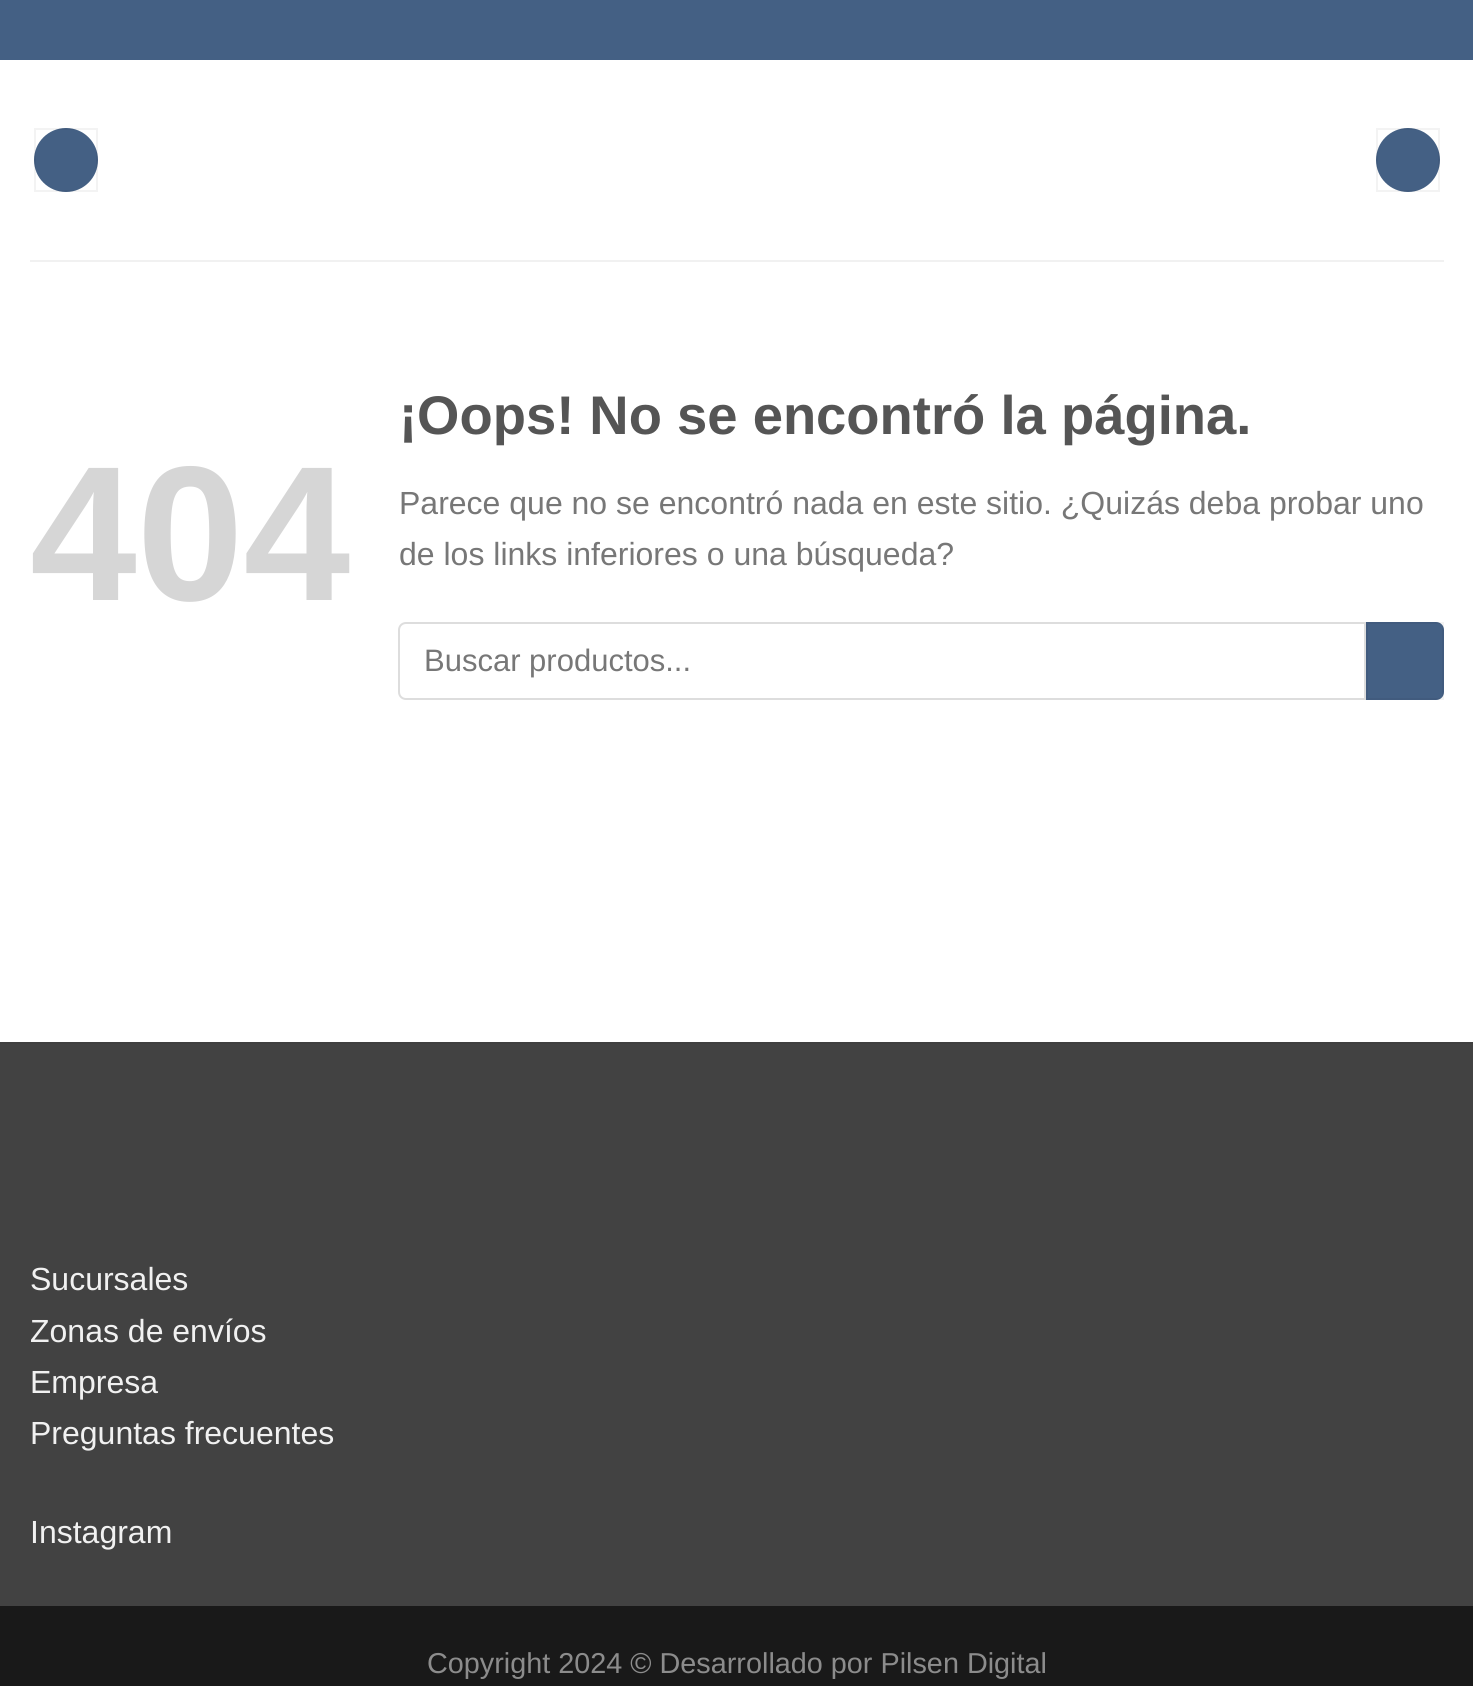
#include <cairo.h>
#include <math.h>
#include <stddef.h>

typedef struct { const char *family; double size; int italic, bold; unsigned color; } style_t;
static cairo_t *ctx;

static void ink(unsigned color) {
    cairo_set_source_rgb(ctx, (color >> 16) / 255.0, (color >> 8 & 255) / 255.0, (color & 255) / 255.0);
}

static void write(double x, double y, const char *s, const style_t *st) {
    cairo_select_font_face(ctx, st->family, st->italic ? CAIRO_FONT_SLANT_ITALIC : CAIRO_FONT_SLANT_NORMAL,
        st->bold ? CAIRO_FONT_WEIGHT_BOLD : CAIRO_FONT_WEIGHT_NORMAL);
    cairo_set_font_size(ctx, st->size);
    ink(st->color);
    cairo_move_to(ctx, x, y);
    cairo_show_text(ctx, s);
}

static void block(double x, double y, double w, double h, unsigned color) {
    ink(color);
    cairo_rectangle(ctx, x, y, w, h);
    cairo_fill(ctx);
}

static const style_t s1 = {"Liberation Sans", 192, 0, 1, 0xd6d6d6};
static const style_t s2 = {"Liberation Sans", 54.4, 0, 1, 0x555555};
static const style_t s3 = {"Liberation Sans", 32, 0, 0, 0x777777};
static const style_t s4 = {"Liberation Sans", 31, 0, 0, 0x777777};
static const style_t s5 = {"Liberation Sans", 32, 0, 0, 0xf1f1f1};
static const style_t s6 = {"Liberation Sans", 28.8, 0, 0, 0x8c8c8c};

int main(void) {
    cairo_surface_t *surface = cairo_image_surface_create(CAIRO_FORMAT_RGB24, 1473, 1686);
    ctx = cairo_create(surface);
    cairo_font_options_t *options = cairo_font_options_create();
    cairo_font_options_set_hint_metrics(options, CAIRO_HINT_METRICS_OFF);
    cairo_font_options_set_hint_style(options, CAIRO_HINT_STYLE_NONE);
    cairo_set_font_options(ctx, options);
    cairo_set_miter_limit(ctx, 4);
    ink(0xffffff);
    cairo_paint(ctx);
    block(0, 0, 1473, 60, 0x446084);
    cairo_arc(ctx, 66, 160, 32, 0, 2 * M_PI);
    cairo_fill(ctx);
    cairo_rectangle(ctx, 35, 129, 62, 62);
    cairo_set_source_rgba(ctx, 0, 0, 0, 0.05);
    cairo_stroke(ctx);
    ink(0x446084);
    cairo_arc(ctx, 1408, 160, 32, 0, 2 * M_PI);
    cairo_fill(ctx);
    cairo_rectangle(ctx, 1377, 129, 62, 62);
    cairo_set_source_rgba(ctx, 0, 0, 0, 0.05);
    cairo_stroke(ctx);
    block(30, 260, 1414, 2, 0xf1f1f1);
    write(30, 600, "404", &s1);
    write(399, 434, "¡Oops! No se encontró la página.", &s2);
    write(399, 514, "Parece que no se encontró nada en este sitio. ¿Quizás deba probar uno", &s3);
    write(399, 565, "de los links inferiores o una búsqueda?", &s3);
    cairo_new_path(ctx);
    cairo_move_to(ctx, 406, 623);
    cairo_line_to(ctx, 1365, 623);
    cairo_line_to(ctx, 1365, 699);
    cairo_line_to(ctx, 406, 699);
    cairo_curve_to(ctx, 402, 699, 399, 696, 399, 692);
    cairo_line_to(ctx, 399, 630);
    cairo_curve_to(ctx, 399, 626, 402, 623, 406, 623);
    cairo_close_path(ctx);
    ink(0xdddddd);
    cairo_stroke(ctx);
    write(424, 671, "Buscar productos...", &s4);
    ink(0x446084);
    cairo_new_path(ctx);
    cairo_move_to(ctx, 1366, 622);
    cairo_line_to(ctx, 1436, 622);
    cairo_curve_to(ctx, 1440.5, 622, 1444, 625.5, 1444, 630);
    cairo_line_to(ctx, 1444, 692);
    cairo_curve_to(ctx, 1444, 696.5, 1440.5, 700, 1436, 700);
    cairo_line_to(ctx, 1366, 700);
    cairo_close_path(ctx);
    cairo_fill(ctx);
    cairo_rectangle(ctx, 1367, 623, 76, 76);
    cairo_set_source_rgba(ctx, 0, 0, 0, 0.05);
    cairo_stroke(ctx);
    block(0, 1044, 1473, 562, 0x424242);
    block(0, 1042, 1473, 2, 0x3f3f3f);
    write(30, 1290, "Sucursales", &s5);
    write(30, 1342, "Zonas de envíos", &s5);
    write(30, 1393, "Empresa", &s5);
    write(30, 1444, "Preguntas frecuentes", &s5);
    write(30, 1543, "Instagram", &s5);
    block(0, 1606, 1473, 80, 0x191919);
    write(427, 1673, "Copyright 2024 © Desarrollado por Pilsen Digital", &s6);
    cairo_surface_write_to_png(surface, "screenshot.png");
    cairo_font_options_destroy(options);
    cairo_destroy(ctx);
    cairo_surface_destroy(surface);
    return 0;
}
